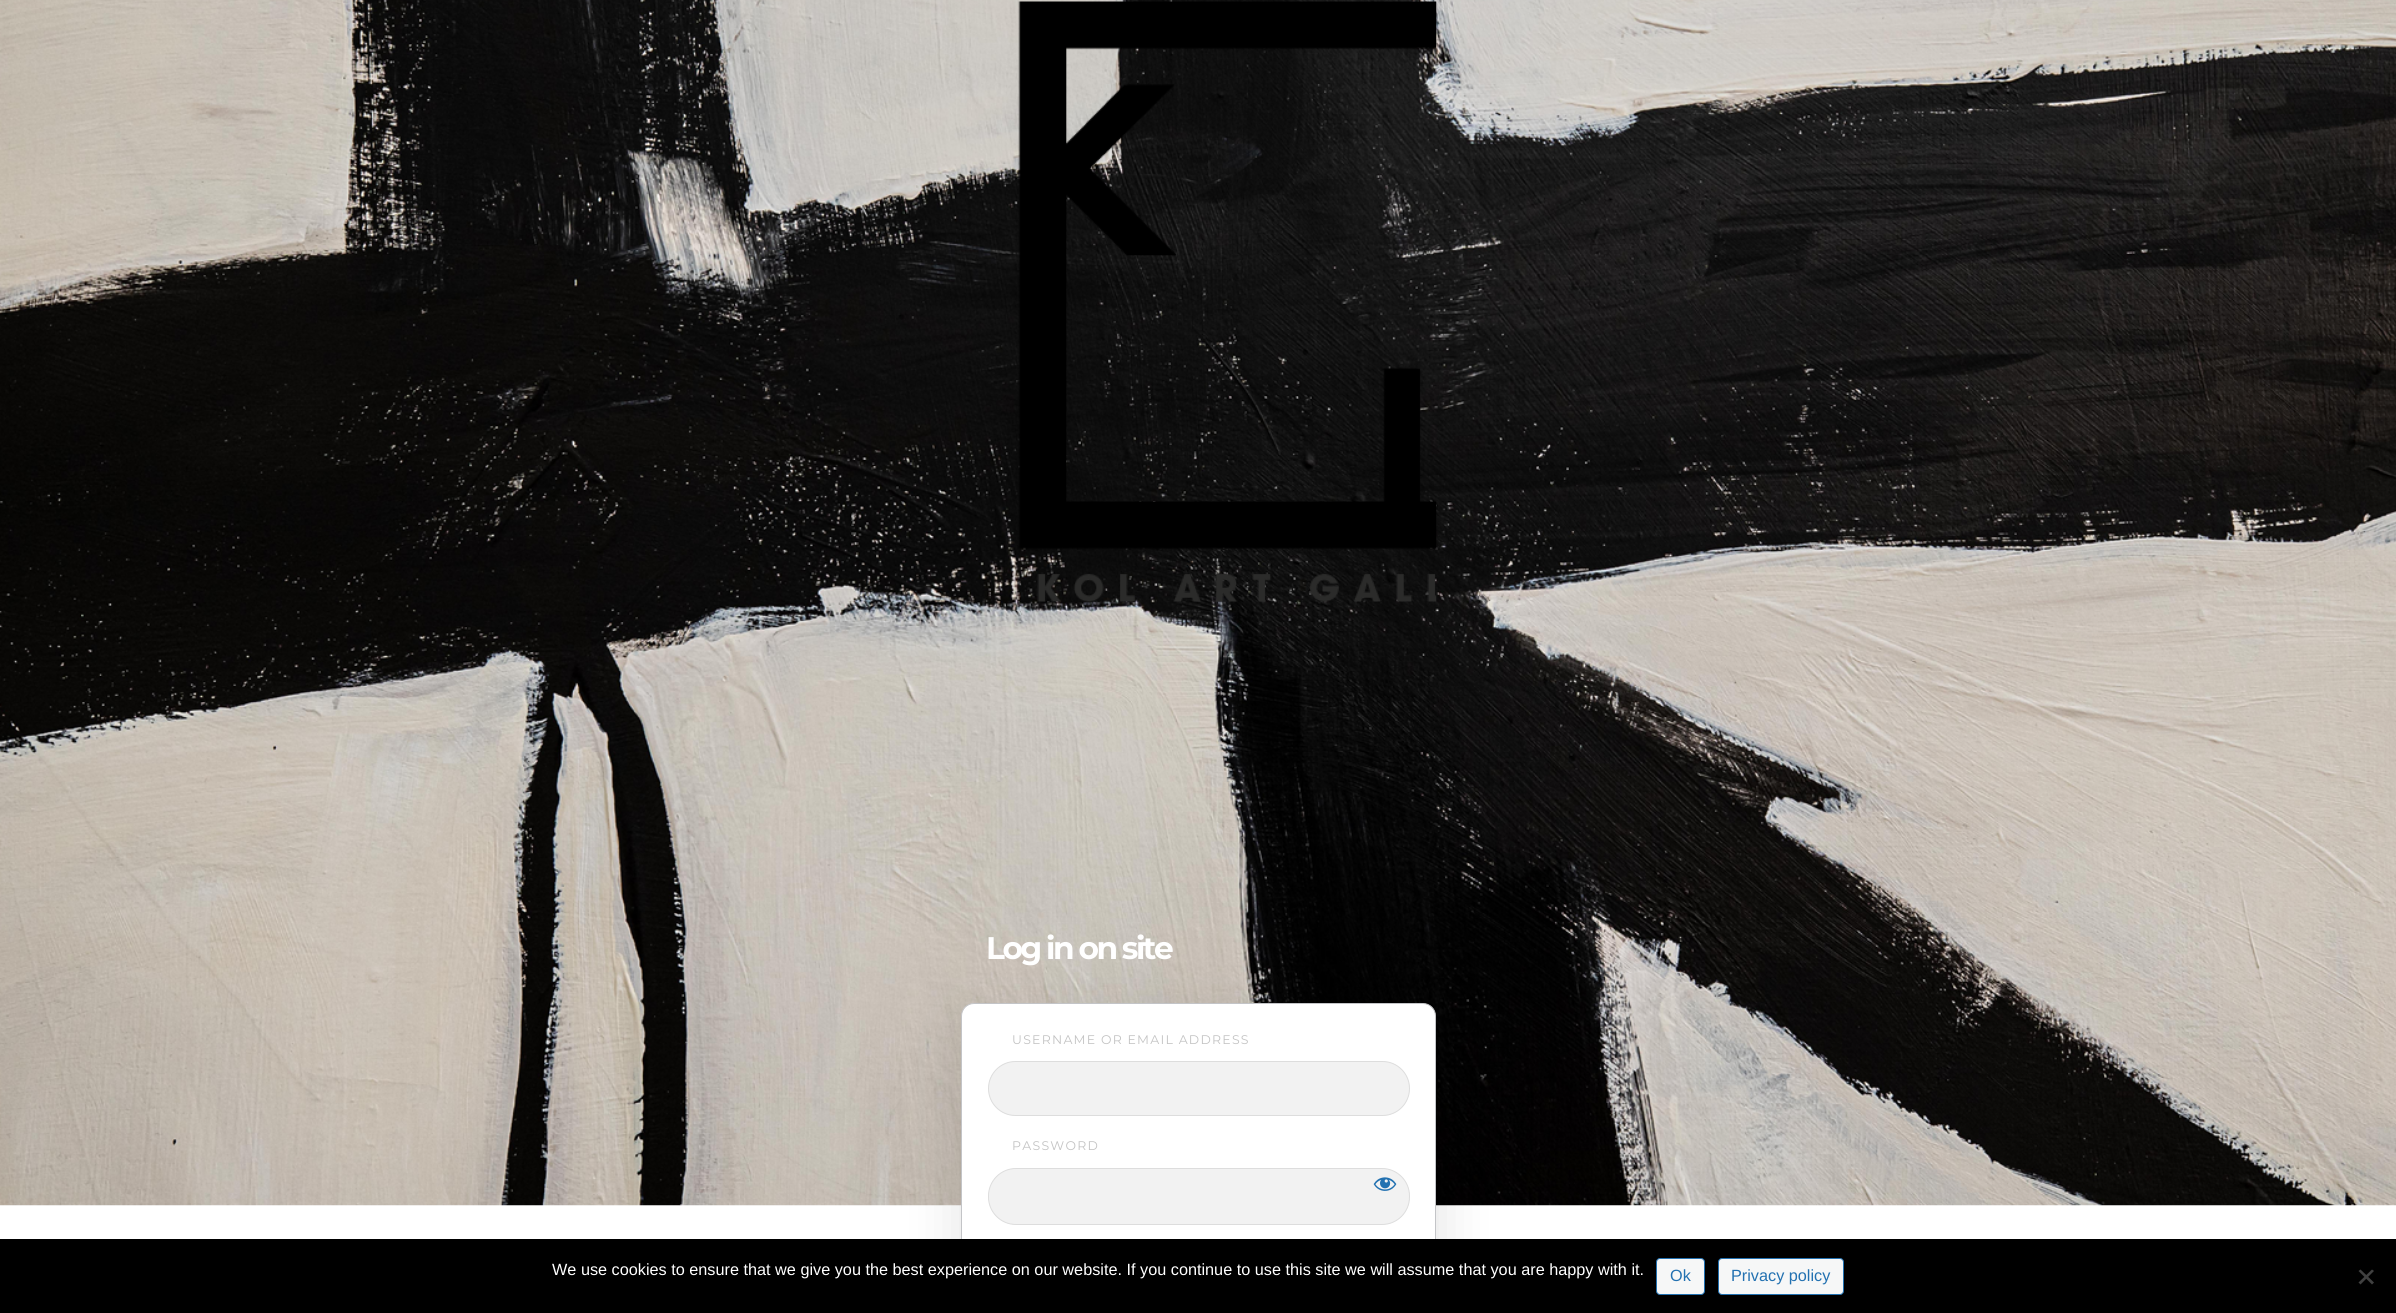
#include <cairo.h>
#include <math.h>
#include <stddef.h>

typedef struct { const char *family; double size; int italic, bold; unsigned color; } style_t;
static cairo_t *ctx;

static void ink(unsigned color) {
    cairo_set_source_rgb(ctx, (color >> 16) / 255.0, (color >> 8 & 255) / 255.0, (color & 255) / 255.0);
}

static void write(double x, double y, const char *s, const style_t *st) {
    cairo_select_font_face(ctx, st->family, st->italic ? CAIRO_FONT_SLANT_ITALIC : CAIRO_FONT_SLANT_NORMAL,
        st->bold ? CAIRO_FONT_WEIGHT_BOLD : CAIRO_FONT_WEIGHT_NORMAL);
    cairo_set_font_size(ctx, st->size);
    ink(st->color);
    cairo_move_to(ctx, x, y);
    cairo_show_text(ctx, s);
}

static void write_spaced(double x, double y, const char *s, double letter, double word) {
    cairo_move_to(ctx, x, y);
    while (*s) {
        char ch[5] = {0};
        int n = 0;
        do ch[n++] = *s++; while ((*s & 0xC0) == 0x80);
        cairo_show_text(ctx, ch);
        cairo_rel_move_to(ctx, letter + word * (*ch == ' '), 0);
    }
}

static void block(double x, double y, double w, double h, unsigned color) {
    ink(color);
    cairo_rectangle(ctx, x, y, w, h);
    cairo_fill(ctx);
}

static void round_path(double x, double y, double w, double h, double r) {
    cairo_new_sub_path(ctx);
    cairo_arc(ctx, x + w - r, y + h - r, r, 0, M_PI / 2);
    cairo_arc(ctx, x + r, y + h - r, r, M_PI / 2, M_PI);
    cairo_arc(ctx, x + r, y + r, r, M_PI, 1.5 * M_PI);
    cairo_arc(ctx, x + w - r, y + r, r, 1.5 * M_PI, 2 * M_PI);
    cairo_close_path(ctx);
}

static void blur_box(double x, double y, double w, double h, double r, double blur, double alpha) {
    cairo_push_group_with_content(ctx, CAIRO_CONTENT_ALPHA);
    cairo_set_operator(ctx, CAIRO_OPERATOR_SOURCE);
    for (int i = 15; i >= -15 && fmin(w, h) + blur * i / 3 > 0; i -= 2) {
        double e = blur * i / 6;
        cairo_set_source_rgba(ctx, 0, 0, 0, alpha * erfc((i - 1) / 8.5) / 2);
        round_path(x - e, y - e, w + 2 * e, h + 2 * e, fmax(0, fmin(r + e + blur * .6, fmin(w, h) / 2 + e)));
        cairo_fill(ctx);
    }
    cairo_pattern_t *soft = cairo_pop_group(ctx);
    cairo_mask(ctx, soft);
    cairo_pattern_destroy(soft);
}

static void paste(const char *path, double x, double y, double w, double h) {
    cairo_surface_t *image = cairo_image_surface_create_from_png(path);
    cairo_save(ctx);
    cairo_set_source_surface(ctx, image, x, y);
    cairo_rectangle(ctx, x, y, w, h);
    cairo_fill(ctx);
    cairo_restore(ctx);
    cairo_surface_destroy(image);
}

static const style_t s1 = {"Liberation Sans", 16.25, 0, 0, 0xffffff};
static const style_t s2 = {"Liberation Sans", 16.25, 0, 0, 0x2271b1};

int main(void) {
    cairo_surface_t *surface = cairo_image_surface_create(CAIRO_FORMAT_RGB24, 2396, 1313);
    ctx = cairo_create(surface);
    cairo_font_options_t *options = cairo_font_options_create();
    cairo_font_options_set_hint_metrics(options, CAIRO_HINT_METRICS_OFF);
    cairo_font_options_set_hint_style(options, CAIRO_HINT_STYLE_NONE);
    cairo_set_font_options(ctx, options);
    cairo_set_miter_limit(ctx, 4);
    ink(0xffffff);
    cairo_paint(ctx);
    paste("pic1.png", 0, 0, 2396, 1206);
    paste("pic2.png", 1018, 1, 419, 601);
    ink(0x000000);
    blur_box(955, 1015, 488, 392, 19, 25, 0.1);
    ink(0xffffff);
    round_path(961.5, 1003.5, 474, 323, 12.5);
    cairo_fill_preserve(ctx);
    ink(0xc3c4c7);
    cairo_set_line_width(ctx, 1);
    cairo_stroke(ctx);
    cairo_select_font_face(ctx, "Montserrat", CAIRO_FONT_SLANT_NORMAL, CAIRO_FONT_WEIGHT_BOLD);
    cairo_set_font_size(ctx, 31.25);
    ink(0xffffff);
    write_spaced(986, 959, "Log in on site", -2.5, 0);
    cairo_select_font_face(ctx, "Montserrat", CAIRO_FONT_SLANT_NORMAL, CAIRO_FONT_WEIGHT_NORMAL);
    cairo_set_font_size(ctx, 12.5);
    ink(0xc3c3c3);
    write_spaced(1012, 1044, "USERNAME OR EMAIL ADDRESS", 1.25, 0);
    ink(0xf2f2f2);
    round_path(988.5, 1061.5, 421, 54, 27);
    cairo_fill_preserve(ctx);
    ink(0xdddddd);
    cairo_stroke(ctx);
    ink(0xc3c3c3);
    write_spaced(1012, 1150, "PASSWORD", 1.25, 0);
    ink(0xf2f2f2);
    round_path(988.5, 1168.5, 421, 56, 27.5);
    cairo_fill_preserve(ctx);
    ink(0xdddddd);
    cairo_stroke(ctx);
    paste("pic3.png", 1373, 1177, 24, 14);
    block(0, 1239, 2396, 74, 0x000000);
    write(552, 1275, "We use cookies to ensure that we give you the best experience on our website. If you continue to use this site we will assume that you are happy with it.", &s1);
    ink(0xf6f7f7);
    round_path(1656.5, 1258.5, 48, 36, 3.5);
    cairo_fill_preserve(ctx);
    ink(0x2271b1);
    cairo_stroke(ctx);
    write(1670, 1281, "Ok", &s2);
    ink(0xf6f7f7);
    round_path(1718.5, 1258.5, 125, 36, 3.5);
    cairo_fill_preserve(ctx);
    ink(0x2271b1);
    cairo_stroke(ctx);
    write(1731, 1281, "Privacy policy", &s2);
    ink(0x404040);
    cairo_new_path(ctx);
    cairo_move_to(ctx, 2372, 1269.5);
    cairo_line_to(ctx, 2374, 1271);
    cairo_line_to(ctx, 2360.5, 1284.5);
    cairo_line_to(ctx, 2358.5, 1282.5);
    cairo_close_path(ctx);
    cairo_fill(ctx);
    cairo_new_path(ctx);
    cairo_move_to(ctx, 2358.5, 1271);
    cairo_line_to(ctx, 2360.5, 1269.5);
    cairo_line_to(ctx, 2374, 1282.5);
    cairo_line_to(ctx, 2372, 1284.5);
    cairo_close_path(ctx);
    cairo_fill(ctx);
    cairo_surface_write_to_png(surface, "screenshot.png");
    cairo_font_options_destroy(options);
    cairo_destroy(ctx);
    cairo_surface_destroy(surface);
    return 0;
}
